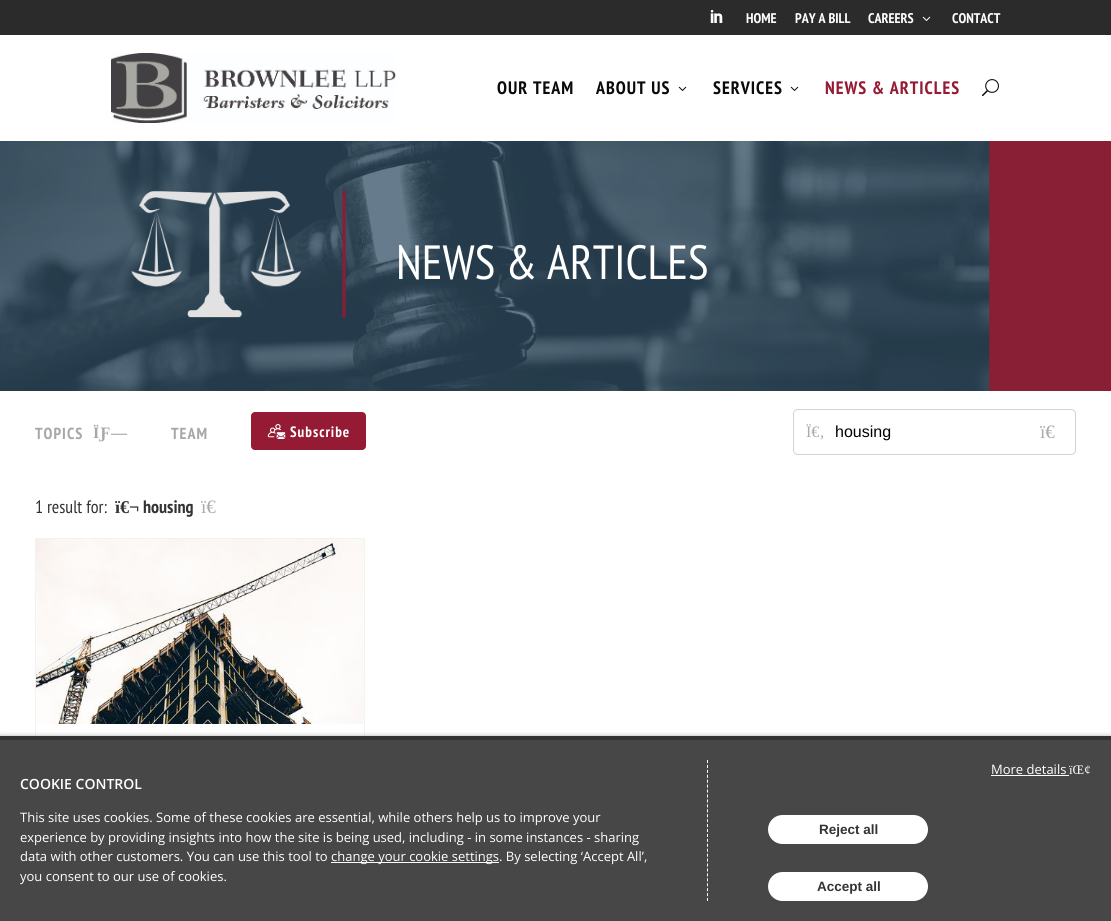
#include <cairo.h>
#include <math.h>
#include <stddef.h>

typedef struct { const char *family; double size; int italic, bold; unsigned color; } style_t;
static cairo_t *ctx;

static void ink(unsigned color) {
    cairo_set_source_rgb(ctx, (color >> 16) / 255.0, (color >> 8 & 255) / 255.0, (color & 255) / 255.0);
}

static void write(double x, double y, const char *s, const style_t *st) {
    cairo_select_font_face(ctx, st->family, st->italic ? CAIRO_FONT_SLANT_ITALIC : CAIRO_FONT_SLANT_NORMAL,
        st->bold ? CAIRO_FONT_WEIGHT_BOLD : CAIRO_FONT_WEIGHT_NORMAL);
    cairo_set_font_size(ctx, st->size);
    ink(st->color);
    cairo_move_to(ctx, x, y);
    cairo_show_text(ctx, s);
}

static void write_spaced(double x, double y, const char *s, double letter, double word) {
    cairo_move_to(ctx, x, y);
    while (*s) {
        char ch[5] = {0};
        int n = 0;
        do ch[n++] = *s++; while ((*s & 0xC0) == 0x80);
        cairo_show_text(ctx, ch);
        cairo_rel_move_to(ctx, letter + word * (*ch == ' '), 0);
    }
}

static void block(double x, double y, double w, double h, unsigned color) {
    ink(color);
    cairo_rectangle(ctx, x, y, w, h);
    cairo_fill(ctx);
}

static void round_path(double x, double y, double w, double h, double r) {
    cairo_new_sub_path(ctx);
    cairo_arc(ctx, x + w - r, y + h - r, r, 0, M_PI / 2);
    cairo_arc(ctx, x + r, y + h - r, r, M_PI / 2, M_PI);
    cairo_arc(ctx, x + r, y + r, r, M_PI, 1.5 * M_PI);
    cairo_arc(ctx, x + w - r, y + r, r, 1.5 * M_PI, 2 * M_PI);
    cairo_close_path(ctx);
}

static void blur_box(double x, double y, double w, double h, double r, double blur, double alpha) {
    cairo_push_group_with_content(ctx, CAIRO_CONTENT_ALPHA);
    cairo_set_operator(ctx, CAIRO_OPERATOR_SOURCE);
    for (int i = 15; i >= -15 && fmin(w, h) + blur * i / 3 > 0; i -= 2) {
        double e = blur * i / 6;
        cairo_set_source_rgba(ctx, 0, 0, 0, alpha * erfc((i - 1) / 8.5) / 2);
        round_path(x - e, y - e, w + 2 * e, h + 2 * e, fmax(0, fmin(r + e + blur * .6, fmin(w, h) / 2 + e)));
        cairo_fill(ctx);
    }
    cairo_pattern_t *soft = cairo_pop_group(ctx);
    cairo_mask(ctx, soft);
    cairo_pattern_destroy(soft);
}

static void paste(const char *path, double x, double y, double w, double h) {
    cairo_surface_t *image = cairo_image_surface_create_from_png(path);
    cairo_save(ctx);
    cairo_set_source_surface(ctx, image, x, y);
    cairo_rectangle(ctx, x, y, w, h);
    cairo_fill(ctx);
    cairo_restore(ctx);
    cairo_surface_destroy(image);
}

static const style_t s1 = {"PT Sans Narrow", 14, 0, 1, 0xffffff};
static const style_t s2 = {"PT Sans Narrow", 48, 0, 0, 0xffffff};
static const style_t s3 = {"Liberation Serif", 16, 0, 0, 0xaaaaaa};
static const style_t s4 = {"Liberation Sans", 16, 0, 0, 0x000000};
static const style_t s5 = {"Liberation Serif", 19, 0, 0, 0xaaaaaa};
static const style_t s6 = {"PT Sans Narrow", 18, 0, 0, 0x333333};
static const style_t s7 = {"Liberation Serif", 18, 0, 1, 0x333333};
static const style_t s8 = {"PT Sans Narrow", 18, 0, 1, 0x333333};
static const style_t s9 = {"Open Sans", 13, 0, 0, 0xffffff};
static const style_t s10 = {"Liberation Serif", 13, 0, 0, 0xffffff};
static const style_t s11 = {"Open Sans SemiBold", 14, 0, 0, 0xffffff};
static const style_t s12 = {"Liberation Sans", 13.5, 0, 1, 0x333333};

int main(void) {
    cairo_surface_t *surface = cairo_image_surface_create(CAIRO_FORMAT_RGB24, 1111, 921);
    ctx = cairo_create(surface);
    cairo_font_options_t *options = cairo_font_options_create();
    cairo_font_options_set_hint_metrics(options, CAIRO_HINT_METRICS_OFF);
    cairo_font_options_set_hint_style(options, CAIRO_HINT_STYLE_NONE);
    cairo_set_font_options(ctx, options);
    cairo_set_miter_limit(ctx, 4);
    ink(0xffffff);
    cairo_paint(ctx);
    block(0, 0, 1111, 35, 0x2b2b2b);
    paste("pic1.png", 710, 9, 13, 14);
    write(746, 23, "HOME", &s1);
    write(795, 23, "PAY A BILL", &s1);
    write(868, 23, "CAREERS", &s1);
    paste("pic2.png", 922, 16, 9, 5);
    write(952, 23, "CONTACT", &s1);
    paste("pic3.png", 111, 53, 285, 70);
    cairo_set_font_size(ctx, 18);
    ink(0x0a0a0a);
    write_spaced(497, 94, "OUR TEAM", 1, 0);
    write_spaced(596, 94, "ABOUT US", 1, 0);
    paste("pic4.png", 678, 86, 9, 5);
    write_spaced(713, 94, "SERVICES", 1, 0);
    paste("pic4.png", 790, 86, 9, 5);
    ink(0x951a34);
    write_spaced(825, 94, "NEWS & ARTICLES", 1, 0);
    paste("pic5.png", 982, 79, 17, 18);
    paste("pic6.png", 0, 141, 1111, 250);
    write(396, 279, "NEWS & ARTICLES", &s2);
    cairo_select_font_face(ctx, "PT Sans Narrow", CAIRO_FONT_SLANT_NORMAL, CAIRO_FONT_WEIGHT_BOLD);
    cairo_set_font_size(ctx, 16);
    ink(0xa7a8a3);
    write_spaced(35, 439, "TOPICS", 1, 0);
    cairo_select_font_face(ctx, "Liberation Serif", CAIRO_FONT_SLANT_NORMAL, CAIRO_FONT_WEIGHT_BOLD);
    write_spaced(93, 438, "ÏƑ—", 1, 0);
    cairo_select_font_face(ctx, "PT Sans Narrow", CAIRO_FONT_SLANT_NORMAL, CAIRO_FONT_WEIGHT_BOLD);
    write_spaced(171, 439, "TEAM", 1, 0);
    ink(0x951a34);
    round_path(251.5, 412.5, 114, 37, 3.5);
    cairo_fill_preserve(ctx);
    cairo_set_line_width(ctx, 1);
    cairo_stroke(ctx);
    paste("pic7.png", 267, 424, 19, 15);
    cairo_set_font_size(ctx, 15);
    ink(0xffffff);
    write_spaced(290, 437, "Subscribe", 1, 0);
    round_path(793.5, 409.5, 282, 45, 4.5);
    ink(0xd3d3d3);
    cairo_stroke(ctx);
    write(806, 437, "Ï€‚", &s3);
    write(835, 437, "housing", &s4);
    write(1040, 438, "ï€", &s5);
    write(35, 513, "1 result for:", &s6);
    write(115, 513, "ï€¬", &s7);
    write(143, 513, "housing", &s8);
    write(201, 513, "ï€", &s5);
    cairo_rectangle(ctx, 35.5, 538.5, 329, 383);
    ink(0xf2f2f1);
    cairo_stroke(ctx);
    paste("pic8.png", 36, 539, 328, 185);
    cairo_save(ctx);
    cairo_rectangle(ctx, 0, 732, 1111, 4);
    cairo_clip(ctx);
    ink(0x000000);
    blur_box(0, 736, 1111, 185, 0, 2.5, 0.3);
    cairo_restore(ctx);
    cairo_set_source_rgba(ctx, 0.2, 0.2, 0.2, 0.9);
    cairo_rectangle(ctx, 0, 740, 1111, 181);
    cairo_fill(ctx);
    block(0, 736, 1111, 4, 0x333333);
    write(991, 774, "More details", &s9);
    block(991, 775, 78, 1, 0xffffff);
    write(1069, 774, "ïŒ¢", &s10);
    cairo_new_path(ctx);
    cairo_move_to(ctx, 707.5, 760);
    cairo_line_to(ctx, 707.5, 901);
    cairo_set_dash(ctx, (double[]){3, 1.93}, 2, 0);
    cairo_stroke(ctx);
    write(20, 789, "COOKIE CONTROL", &s11);
    write(20, 822, "This site uses cookies. Some of these cookies are essential, while others help us to improve your", &s9);
    write(20, 842, "experience by providing insights into how the site is being used, including - in some instances - sharing", &s9);
    write(20, 861, "data with other customers. You can use this tool to", &s9);
    block(331, 862, 168, 1, 0xffffff);
    write(331, 861, "change your cookie settings. By selecting ‘Accept All’,", &s9);
    write(20, 881, "you consent to our use of cookies.", &s9);
    round_path(768, 815, 160, 29, 14.5);
    cairo_fill(ctx);
    write(819, 834, "Reject all", &s12);
    ink(0xffffff);
    round_path(768, 872, 160, 29, 14.5);
    cairo_fill(ctx);
    write(817, 891, "Accept all", &s12);
    cairo_surface_write_to_png(surface, "screenshot.png");
    cairo_font_options_destroy(options);
    cairo_destroy(ctx);
    cairo_surface_destroy(surface);
    return 0;
}
